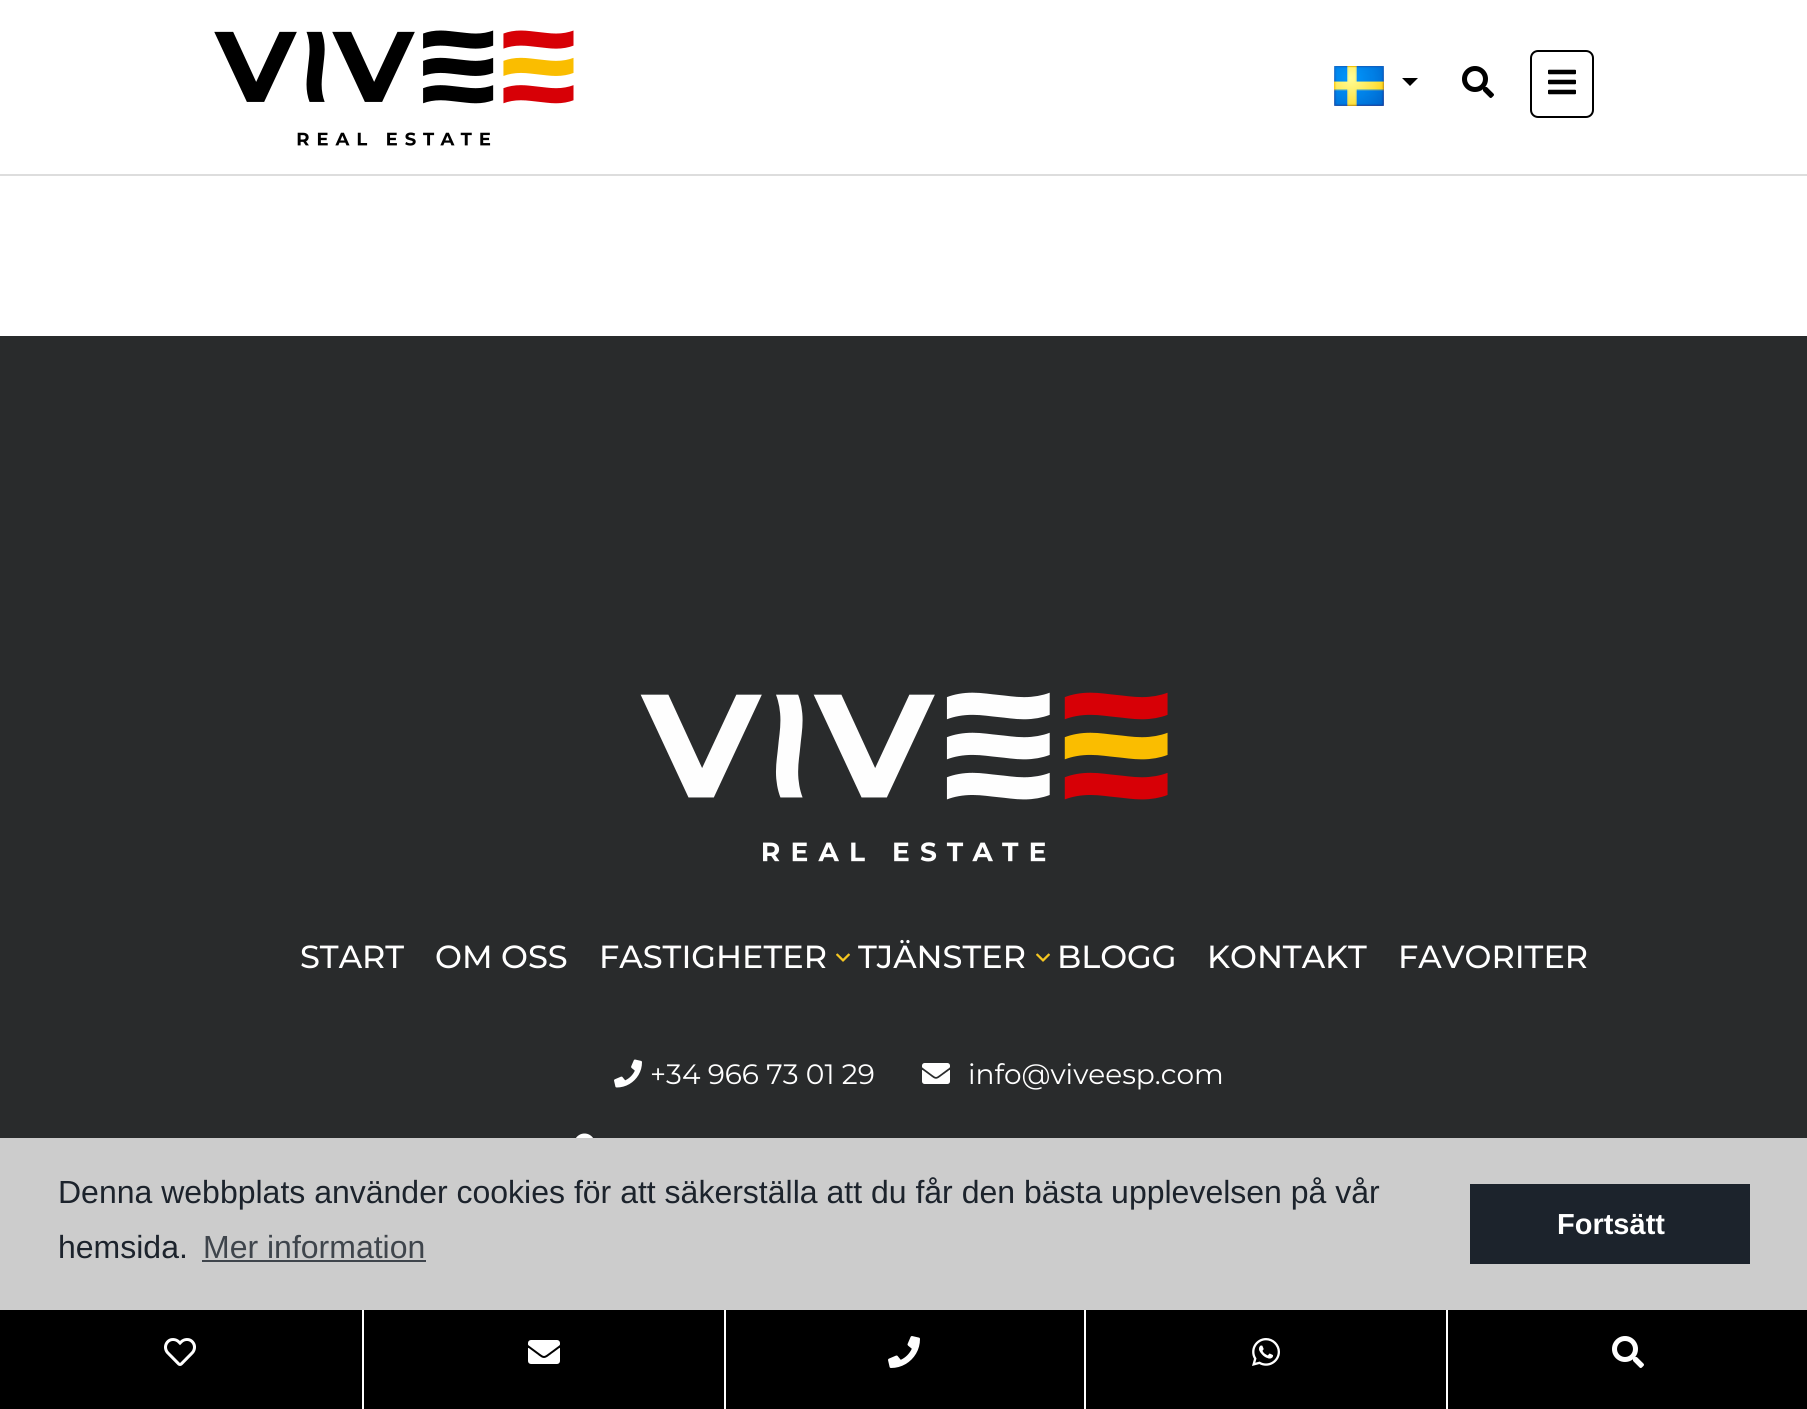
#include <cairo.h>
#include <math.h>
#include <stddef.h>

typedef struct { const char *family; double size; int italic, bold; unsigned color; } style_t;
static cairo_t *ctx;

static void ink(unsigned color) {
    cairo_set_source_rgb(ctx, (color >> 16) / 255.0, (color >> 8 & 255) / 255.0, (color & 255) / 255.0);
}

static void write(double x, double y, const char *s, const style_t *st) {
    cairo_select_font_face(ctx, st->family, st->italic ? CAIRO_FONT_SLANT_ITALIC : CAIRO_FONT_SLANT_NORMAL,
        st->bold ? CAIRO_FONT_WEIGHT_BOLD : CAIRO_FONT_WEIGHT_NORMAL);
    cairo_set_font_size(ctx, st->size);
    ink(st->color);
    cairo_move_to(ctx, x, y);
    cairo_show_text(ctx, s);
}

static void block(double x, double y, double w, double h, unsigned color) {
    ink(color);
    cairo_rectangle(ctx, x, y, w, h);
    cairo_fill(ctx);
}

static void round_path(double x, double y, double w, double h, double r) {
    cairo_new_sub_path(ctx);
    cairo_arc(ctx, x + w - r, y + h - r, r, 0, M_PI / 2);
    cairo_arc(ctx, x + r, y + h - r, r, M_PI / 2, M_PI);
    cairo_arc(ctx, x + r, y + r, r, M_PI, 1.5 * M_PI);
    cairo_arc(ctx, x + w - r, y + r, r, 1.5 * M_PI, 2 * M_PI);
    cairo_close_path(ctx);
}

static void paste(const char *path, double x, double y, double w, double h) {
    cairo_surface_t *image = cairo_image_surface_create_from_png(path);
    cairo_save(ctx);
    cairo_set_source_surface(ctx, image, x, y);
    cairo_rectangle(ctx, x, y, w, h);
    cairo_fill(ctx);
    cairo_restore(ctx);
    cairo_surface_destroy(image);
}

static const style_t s1 = {"Montserrat Medium", 32, 0, 0, 0xffffff};
static const style_t s2 = {"Montserrat", 28, 0, 0, 0xffffff};
static const style_t s3 = {"Liberation Sans", 32, 0, 0, 0x1c232c};
static const style_t s4 = {"Liberation Sans", 32, 0, 0, 0x3f454c};
static const style_t s5 = {"Liberation Sans", 29, 0, 1, 0xffffff};

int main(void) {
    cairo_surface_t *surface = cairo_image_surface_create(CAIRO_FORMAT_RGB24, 1807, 1409);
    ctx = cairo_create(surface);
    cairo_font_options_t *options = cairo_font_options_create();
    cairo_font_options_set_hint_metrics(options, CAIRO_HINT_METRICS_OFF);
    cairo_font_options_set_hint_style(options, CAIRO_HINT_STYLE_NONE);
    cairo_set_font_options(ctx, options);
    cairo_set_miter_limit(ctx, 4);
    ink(0xffffff);
    cairo_paint(ctx);
    block(0, 174, 1807, 2, 0xdddddd);
    paste("pic1.png", 214, 30, 360, 116);
    paste("pic2.png", 1334, 66, 50, 40);
    ink(0x000000);
    cairo_new_path(ctx);
    cairo_move_to(ctx, 1402, 78);
    cairo_line_to(ctx, 1418, 78);
    cairo_line_to(ctx, 1410, 86);
    cairo_close_path(ctx);
    cairo_fill(ctx);
    paste("pic3.png", 1462, 66, 32, 32);
    round_path(1531, 51, 62, 66, 7);
    cairo_stroke(ctx);
    paste("pic4.png", 1548, 69, 28, 26);
    block(0, 336, 1807, 802, 0x292b2c);
    paste("pic5.png", 640, 692, 528, 170);
    write(300, 968, "START", &s1);
    write(435, 968, "OM OSS", &s1);
    write(599, 968, "FASTIGHETER", &s1);
    paste("pic6.png", 836, 953, 14, 9);
    write(858, 968, "TJÄNSTER", &s1);
    paste("pic6.png", 1036, 953, 14, 9);
    write(1057, 968, "BLOGG", &s1);
    write(1207, 968, "KONTAKT", &s1);
    write(1398, 968, "FAVORITER", &s1);
    paste("pic7.png", 614, 1059, 28, 29);
    write(650, 1084, "+34 966 73 01 29", &s2);
    paste("pic8.png", 922, 1063, 28, 21);
    write(968, 1084, "info@viveesp.com", &s2);
    paste("pic9.png", 576, 1133, 17, 5);
    block(0, 1310, 1807, 99, 0x000000);
    block(362, 1302, 2, 107, 0xffffff);
    block(724, 1302, 2, 107, 0xffffff);
    block(1084, 1302, 2, 107, 0xffffff);
    block(1446, 1302, 2, 107, 0xffffff);
    block(0, 1138, 1807, 172, 0xcccccc);
    write(58, 1203, "Denna webbplats använder cookies för att säkerställa att du får den bästa upplevelsen på vår", &s3);
    write(58, 1258, "hemsida.", &s3);
    write(203, 1258, "Mer information", &s4);
    block(202, 1260, 224, 2, 0x3f454c);
    block(1470, 1184, 280, 80, 0x1c232c);
    write(1557, 1234, "Fortsätt", &s5);
    paste("pic10.png", 164, 1338, 32, 28);
    paste("pic11.png", 528, 1340, 32, 24);
    paste("pic12.png", 888, 1336, 32, 32);
    paste("pic13.png", 1252, 1338, 28, 28);
    paste("pic14.png", 1612, 1336, 32, 32);
    cairo_surface_write_to_png(surface, "screenshot.png");
    cairo_font_options_destroy(options);
    cairo_destroy(ctx);
    cairo_surface_destroy(surface);
    return 0;
}
